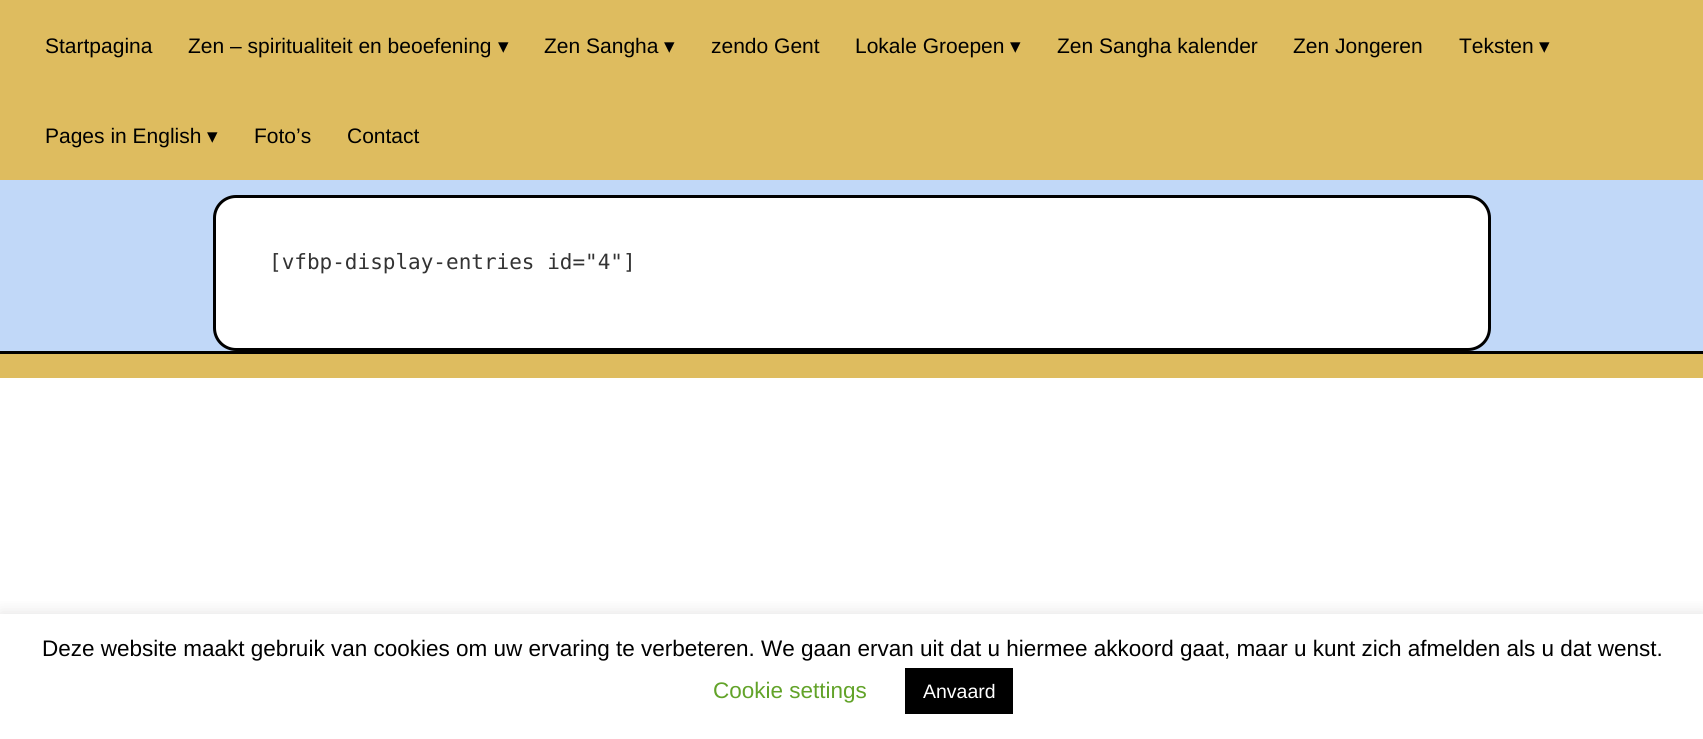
#include <cairo.h>
#include <math.h>
#include <stddef.h>

typedef struct { const char *family; double size; int italic, bold; unsigned color; } style_t;
static cairo_t *ctx;

static void ink(unsigned color) {
    cairo_set_source_rgb(ctx, (color >> 16) / 255.0, (color >> 8 & 255) / 255.0, (color & 255) / 255.0);
}

static void write(double x, double y, const char *s, const style_t *st) {
    cairo_select_font_face(ctx, st->family, st->italic ? CAIRO_FONT_SLANT_ITALIC : CAIRO_FONT_SLANT_NORMAL,
        st->bold ? CAIRO_FONT_WEIGHT_BOLD : CAIRO_FONT_WEIGHT_NORMAL);
    cairo_set_font_size(ctx, st->size);
    ink(st->color);
    cairo_move_to(ctx, x, y);
    cairo_show_text(ctx, s);
}

static void block(double x, double y, double w, double h, unsigned color) {
    ink(color);
    cairo_rectangle(ctx, x, y, w, h);
    cairo_fill(ctx);
}

static void round_path(double x, double y, double w, double h, double r) {
    cairo_new_sub_path(ctx);
    cairo_arc(ctx, x + w - r, y + h - r, r, 0, M_PI / 2);
    cairo_arc(ctx, x + r, y + h - r, r, M_PI / 2, M_PI);
    cairo_arc(ctx, x + r, y + r, r, M_PI, 1.5 * M_PI);
    cairo_arc(ctx, x + w - r, y + r, r, 1.5 * M_PI, 2 * M_PI);
    cairo_close_path(ctx);
}

static void blur_box(double x, double y, double w, double h, double r, double blur, double alpha) {
    cairo_push_group_with_content(ctx, CAIRO_CONTENT_ALPHA);
    cairo_set_operator(ctx, CAIRO_OPERATOR_SOURCE);
    for (int i = 15; i >= -15 && fmin(w, h) + blur * i / 3 > 0; i -= 2) {
        double e = blur * i / 6;
        cairo_set_source_rgba(ctx, 0, 0, 0, alpha * erfc((i - 1) / 8.5) / 2);
        round_path(x - e, y - e, w + 2 * e, h + 2 * e, fmax(0, fmin(r + e + blur * .6, fmin(w, h) / 2 + e)));
        cairo_fill(ctx);
    }
    cairo_pattern_t *soft = cairo_pop_group(ctx);
    cairo_mask(ctx, soft);
    cairo_pattern_destroy(soft);
}

static const style_t s1 = {"Liberation Sans", 21, 0, 0, 0x000000};
static const style_t s2 = {"DejaVu Sans", 21, 0, 0, 0x000000};
static const style_t s3 = {"DejaVu Sans Mono", 21, 0, 0, 0x333333};
static const style_t s4 = {"Liberation Sans", 22.5, 0, 0, 0x000000};
static const style_t s5 = {"Liberation Sans", 22.5, 0, 0, 0x62a329};
static const style_t s6 = {"Liberation Sans", 19.5, 0, 0, 0xffffff};

int main(void) {
    cairo_surface_t *surface = cairo_image_surface_create(CAIRO_FORMAT_RGB24, 1703, 739);
    ctx = cairo_create(surface);
    cairo_font_options_t *options = cairo_font_options_create();
    cairo_font_options_set_hint_metrics(options, CAIRO_HINT_METRICS_OFF);
    cairo_font_options_set_hint_style(options, CAIRO_HINT_STYLE_NONE);
    cairo_set_font_options(ctx, options);
    cairo_set_miter_limit(ctx, 4);
    ink(0xffffff);
    cairo_paint(ctx);
    block(0, 0, 1703, 180, 0xdebc5f);
    write(45, 53, "Startpagina", &s1);
    write(188, 53, "Zen – spiritualiteit en beoefening", &s1);
    write(498, 53, "▾", &s2);
    write(544, 53, "Zen Sangha", &s1);
    write(664, 53, "▾", &s2);
    write(711, 53, "zendo Gent", &s1);
    write(855, 53, "Lokale Groepen", &s1);
    write(1010, 53, "▾", &s2);
    write(1057, 53, "Zen Sangha kalender", &s1);
    write(1293, 53, "Zen Jongeren", &s1);
    write(1459, 53, "Teksten", &s1);
    write(1539, 53, "▾", &s2);
    write(45, 143, "Pages in English", &s1);
    write(207, 143, "▾", &s2);
    write(254, 143, "Foto’s", &s1);
    write(347, 143, "Contact", &s1);
    block(0, 180, 1703, 171, 0xc1d8f8);
    block(0, 351, 1703, 3, 0x000000);
    ink(0xffffff);
    round_path(214.5, 196.5, 1275, 153, 21.5);
    cairo_fill_preserve(ctx);
    ink(0x000000);
    cairo_set_line_width(ctx, 3);
    cairo_stroke(ctx);
    write(269, 269, "[vfbp-display-entries id=\"4\"]", &s3);
    block(0, 354, 1703, 24, 0xdebc5f);
    cairo_save(ctx);
    cairo_rectangle(ctx, 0, 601, 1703, 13);
    cairo_clip(ctx);
    ink(0xacabab);
    blur_box(0, 612, 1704, 126, 0, 7.5, 0.3);
    cairo_restore(ctx);
    write(42, 656, "Deze website maakt gebruik van cookies om uw ervaring te verbeteren. We gaan ervan uit dat u hiermee akkoord gaat, maar u kunt zich afmelden als u dat wenst.", &s4);
    write(713, 698, "Cookie settings", &s5);
    block(905, 668, 108, 46, 0x000000);
    write(923, 698, "Anvaard", &s6);
    cairo_surface_write_to_png(surface, "screenshot.png");
    cairo_font_options_destroy(options);
    cairo_destroy(ctx);
    cairo_surface_destroy(surface);
    return 0;
}
